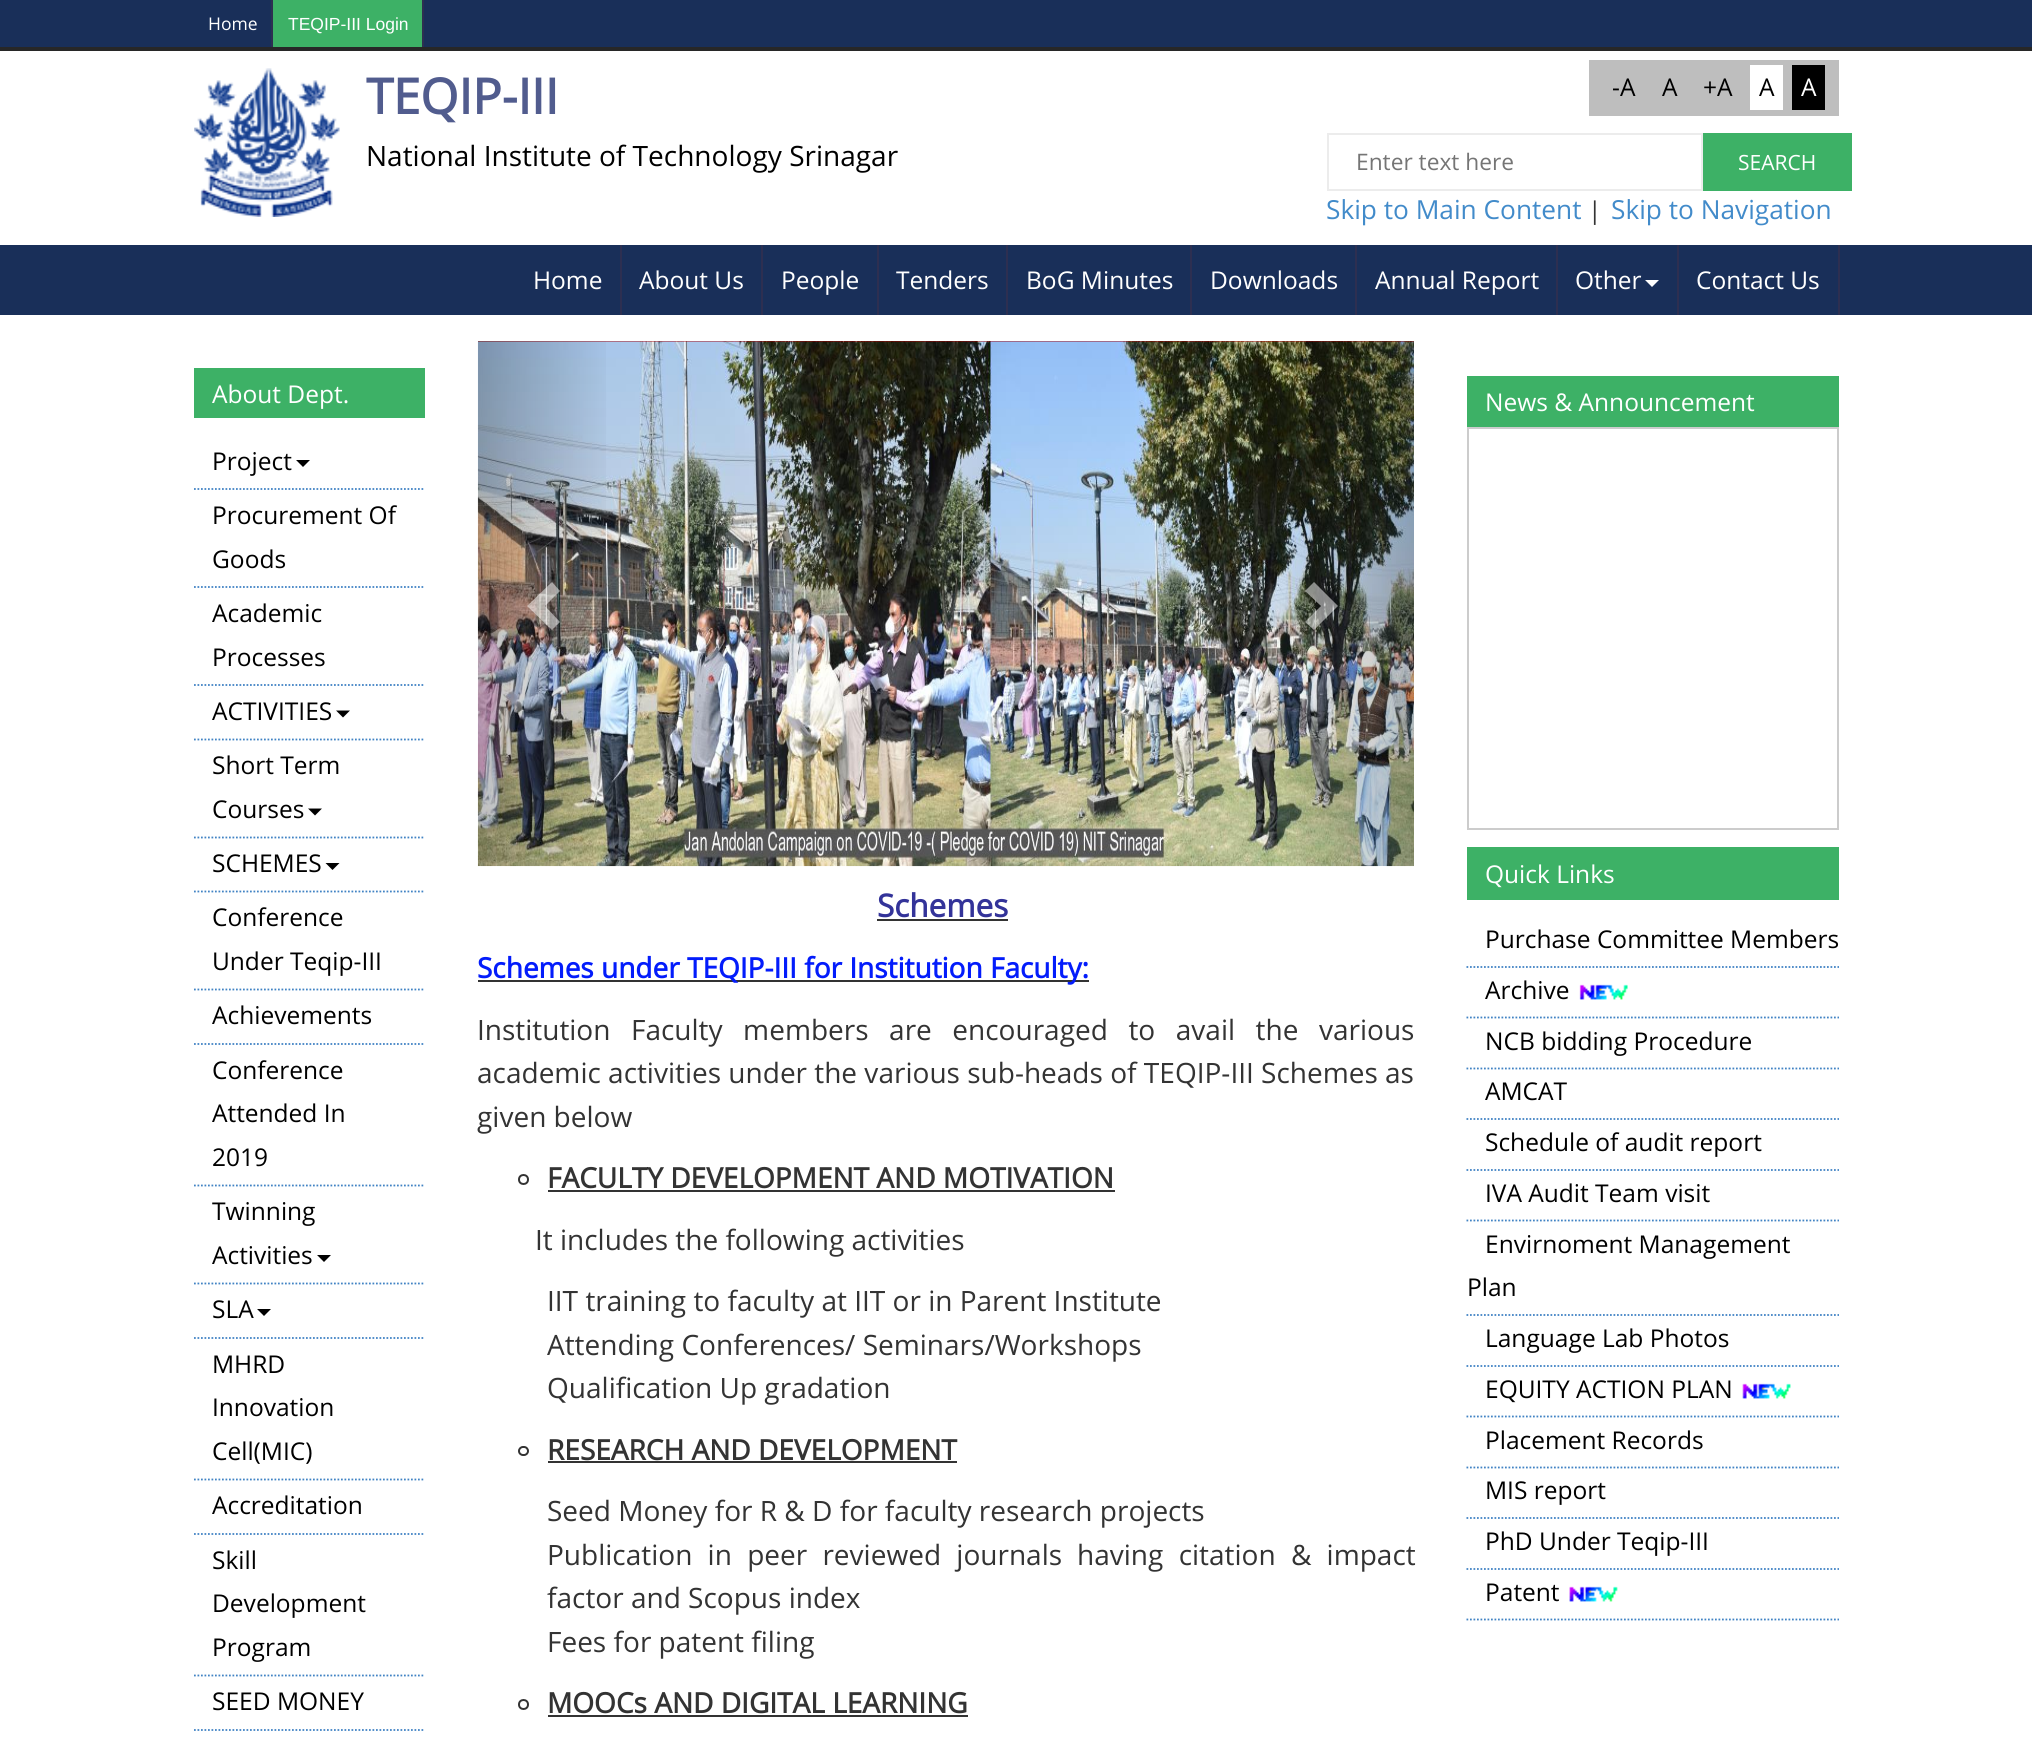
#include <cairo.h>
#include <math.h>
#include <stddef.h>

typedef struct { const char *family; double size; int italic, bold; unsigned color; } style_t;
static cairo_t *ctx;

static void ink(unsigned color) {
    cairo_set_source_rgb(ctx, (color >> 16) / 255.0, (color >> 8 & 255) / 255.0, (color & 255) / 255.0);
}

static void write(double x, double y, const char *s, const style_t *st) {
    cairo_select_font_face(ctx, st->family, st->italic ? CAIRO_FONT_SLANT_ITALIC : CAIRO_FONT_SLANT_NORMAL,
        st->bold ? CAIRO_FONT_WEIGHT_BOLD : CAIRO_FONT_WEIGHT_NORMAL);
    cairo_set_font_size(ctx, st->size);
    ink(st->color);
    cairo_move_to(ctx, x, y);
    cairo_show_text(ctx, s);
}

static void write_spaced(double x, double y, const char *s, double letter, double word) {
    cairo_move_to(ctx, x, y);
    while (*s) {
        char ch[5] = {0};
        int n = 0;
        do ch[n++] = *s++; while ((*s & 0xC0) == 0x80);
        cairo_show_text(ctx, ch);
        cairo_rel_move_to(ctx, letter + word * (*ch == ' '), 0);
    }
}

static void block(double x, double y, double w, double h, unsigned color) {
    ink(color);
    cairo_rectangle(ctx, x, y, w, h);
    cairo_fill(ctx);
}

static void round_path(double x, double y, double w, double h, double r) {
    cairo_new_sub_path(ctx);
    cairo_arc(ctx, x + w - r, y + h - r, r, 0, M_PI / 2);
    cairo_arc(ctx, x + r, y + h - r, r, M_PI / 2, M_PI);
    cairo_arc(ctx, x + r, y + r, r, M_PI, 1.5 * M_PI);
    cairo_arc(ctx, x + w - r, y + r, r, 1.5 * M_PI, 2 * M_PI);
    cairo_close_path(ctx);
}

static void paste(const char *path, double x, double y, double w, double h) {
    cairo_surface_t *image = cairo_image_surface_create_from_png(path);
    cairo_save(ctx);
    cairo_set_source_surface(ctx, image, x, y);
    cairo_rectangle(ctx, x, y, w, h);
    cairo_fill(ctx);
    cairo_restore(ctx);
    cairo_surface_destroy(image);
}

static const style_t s1 = {"Open Sans", 17.5, 0, 0, 0xffffff};
static const style_t s2 = {"Liberation Sans", 17.5, 0, 0, 0xffffff};
static const style_t s3 = {"Open Sans", 49, 0, 1, 0x515c8e};
static const style_t s4 = {"Open Sans", 28, 0, 0, 0x000000};
static const style_t s5 = {"Open Sans", 24.5, 0, 0, 0x000000};
static const style_t s6 = {"Open Sans", 24.5, 0, 0, 0xffffff};
static const style_t s7 = {"Open Sans", 22.75, 0, 0, 0x757575};
static const style_t s8 = {"Open Sans", 21, 0, 0, 0xffffff};
static const style_t s9 = {"Open Sans", 26.25, 0, 0, 0x428bca};
static const style_t s10 = {"Open Sans", 24.5, 0, 0, 0x333333};
static const style_t s11 = {"Open Sans", 31.5, 0, 1, 0x333399};
static const style_t s12 = {"Open Sans", 28, 0, 1, 0x031cfb};
static const style_t s13 = {"Open Sans", 28, 0, 0, 0x333333};
static const style_t s14 = {"Open Sans", 28, 0, 1, 0x333333};

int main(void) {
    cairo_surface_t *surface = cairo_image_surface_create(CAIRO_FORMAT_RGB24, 2032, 1747);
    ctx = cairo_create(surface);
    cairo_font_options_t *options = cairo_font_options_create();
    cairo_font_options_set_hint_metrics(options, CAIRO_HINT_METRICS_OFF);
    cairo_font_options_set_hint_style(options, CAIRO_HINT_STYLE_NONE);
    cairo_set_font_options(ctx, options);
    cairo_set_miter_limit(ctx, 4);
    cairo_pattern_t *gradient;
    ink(0xffffff);
    cairo_paint(ctx);
    block(0, 0, 2032, 47, 0x192f59);
    block(271, 0, 2, 47, 0x2d2f51);
    write(208, 30, "Home", &s1);
    block(422, 0, 2, 47, 0x2d2f51);
    block(273, 0, 149, 47, 0x3db166);
    write(288, 30, "TEQIP-III Login", &s2);
    block(0, 47, 2032, 4, 0x272727);
    paste("pic1.png", 194, 68, 146, 149);
    write(366, 114, "TEQIP-III", &s3);
    write(366, 166, "National Institute of Technology Srinagar", &s4);
    block(1589, 60, 250, 56, 0xbebebe);
    write(1612, 96, "-A", &s5);
    write(1662, 96, "A", &s5);
    write(1703, 96, "+A", &s5);
    block(1750, 65, 33, 45, 0xffffff);
    write(1759, 96, "A", &s5);
    block(1792, 65, 33, 45, 0x000000);
    write(1801, 96, "A", &s6);
    cairo_rectangle(ctx, 1328, 134, 374, 56);
    ink(0xececec);
    cairo_stroke(ctx);
    write(1356, 170, "Enter text here", &s7);
    block(1703, 133, 149, 58, 0x3db166);
    write(1738, 170, "SEARCH", &s8);
    write(1326, 219, "Skip to Main Content", &s9);
    write(1588, 219, "|", &s10);
    write(1611, 219, "Skip to Navigation", &s9);
    block(0, 245, 2032, 70, 0x192f59);
    block(620, 245, 2, 70, 0x2d2f51);
    write(533, 289, "Home", &s6);
    block(761, 245, 2, 70, 0x2d2f51);
    write(639, 289, "About Us", &s6);
    block(877, 245, 2, 70, 0x2d2f51);
    write(781, 289, "People", &s6);
    block(1006, 245, 2, 70, 0x2d2f51);
    write(896, 289, "Tenders", &s6);
    block(1190, 245, 2, 70, 0x2d2f51);
    write(1026, 289, "BoG Minutes", &s6);
    block(1355, 245, 2, 70, 0x2d2f51);
    write(1210, 289, "Downloads", &s6);
    block(1556, 245, 2, 70, 0x2d2f51);
    write(1375, 289, "Annual Report", &s6);
    block(1677, 245, 2, 70, 0x2d2f51);
    write(1575, 289, "Other", &s6);
    cairo_new_path(ctx);
    cairo_move_to(ctx, 1645, 280);
    cairo_line_to(ctx, 1659, 280);
    cairo_line_to(ctx, 1652, 287);
    cairo_close_path(ctx);
    cairo_fill(ctx);
    block(1838, 245, 2, 70, 0x2d2f51);
    write(1696, 289, "Contact Us", &s6);
    block(194, 368, 231, 50, 0x3db166);
    write(212, 403, "About Dept.", &s6);
    cairo_new_path(ctx);
    cairo_move_to(ctx, 194, 489);
    cairo_line_to(ctx, 425, 489);
    ink(0x4183c4);
    cairo_set_line_width(ctx, 1.8);
    cairo_set_dash(ctx, (double[]){1.75, 1.75}, 2, 0);
    cairo_stroke(ctx);
    write(212, 470, "Project", &s5);
    cairo_new_path(ctx);
    cairo_move_to(ctx, 296, 460);
    cairo_line_to(ctx, 310, 460);
    cairo_line_to(ctx, 303, 467);
    cairo_close_path(ctx);
    cairo_fill(ctx);
    cairo_new_path(ctx);
    cairo_move_to(ctx, 194, 587);
    cairo_line_to(ctx, 425, 587);
    ink(0x4183c4);
    cairo_stroke(ctx);
    write(212, 524, "Procurement Of", &s5);
    write(212, 568, "Goods", &s5);
    cairo_new_path(ctx);
    cairo_move_to(ctx, 194, 685);
    cairo_line_to(ctx, 425, 685);
    ink(0x4183c4);
    cairo_stroke(ctx);
    write(212, 622, "Academic", &s5);
    write(212, 666, "Processes", &s5);
    cairo_new_path(ctx);
    cairo_move_to(ctx, 194, 739.5);
    cairo_line_to(ctx, 425, 739.5);
    ink(0x4183c4);
    cairo_stroke(ctx);
    write(212, 720, "ACTIVITIES", &s5);
    cairo_new_path(ctx);
    cairo_move_to(ctx, 336, 710.5);
    cairo_line_to(ctx, 350, 710.5);
    cairo_line_to(ctx, 343, 717.5);
    cairo_close_path(ctx);
    cairo_fill(ctx);
    cairo_new_path(ctx);
    cairo_move_to(ctx, 194, 837.5);
    cairo_line_to(ctx, 425, 837.5);
    ink(0x4183c4);
    cairo_stroke(ctx);
    write(212, 774, "Short Term", &s5);
    write(212, 818, "Courses", &s5);
    cairo_new_path(ctx);
    cairo_move_to(ctx, 308, 808.5);
    cairo_line_to(ctx, 322, 808.5);
    cairo_line_to(ctx, 315, 815.5);
    cairo_close_path(ctx);
    cairo_fill(ctx);
    cairo_new_path(ctx);
    cairo_move_to(ctx, 194, 891.5);
    cairo_line_to(ctx, 425, 891.5);
    ink(0x4183c4);
    cairo_stroke(ctx);
    write(212, 872, "SCHEMES", &s5);
    cairo_new_path(ctx);
    cairo_move_to(ctx, 325.5, 863);
    cairo_line_to(ctx, 339.5, 863);
    cairo_line_to(ctx, 332.5, 870);
    cairo_close_path(ctx);
    cairo_fill(ctx);
    cairo_new_path(ctx);
    cairo_move_to(ctx, 194, 989.5);
    cairo_line_to(ctx, 425, 989.5);
    ink(0x4183c4);
    cairo_stroke(ctx);
    write(212, 926, "Conference", &s5);
    write(212, 970, "Under Teqip-III", &s5);
    cairo_new_path(ctx);
    cairo_move_to(ctx, 194, 1044);
    cairo_line_to(ctx, 425, 1044);
    ink(0x4183c4);
    cairo_stroke(ctx);
    write(212, 1024, "Achievements", &s5);
    cairo_new_path(ctx);
    cairo_move_to(ctx, 194, 1185.5);
    cairo_line_to(ctx, 425, 1185.5);
    ink(0x4183c4);
    cairo_stroke(ctx);
    write(212, 1079, "Conference", &s5);
    write(212, 1122, "Attended In", &s5);
    write(212, 1166, "2019", &s5);
    cairo_new_path(ctx);
    cairo_move_to(ctx, 194, 1283.5);
    cairo_line_to(ctx, 425, 1283.5);
    ink(0x4183c4);
    cairo_stroke(ctx);
    write(212, 1220, "Twinning", &s5);
    write(212, 1264, "Activities", &s5);
    cairo_new_path(ctx);
    cairo_move_to(ctx, 317, 1255);
    cairo_line_to(ctx, 331, 1255);
    cairo_line_to(ctx, 324, 1262);
    cairo_close_path(ctx);
    cairo_fill(ctx);
    cairo_new_path(ctx);
    cairo_move_to(ctx, 194, 1338);
    cairo_line_to(ctx, 425, 1338);
    ink(0x4183c4);
    cairo_stroke(ctx);
    write(212, 1318, "SLA", &s5);
    cairo_new_path(ctx);
    cairo_move_to(ctx, 257, 1309);
    cairo_line_to(ctx, 271, 1309);
    cairo_line_to(ctx, 264, 1316);
    cairo_close_path(ctx);
    cairo_fill(ctx);
    cairo_new_path(ctx);
    cairo_move_to(ctx, 194, 1479.5);
    cairo_line_to(ctx, 425, 1479.5);
    ink(0x4183c4);
    cairo_stroke(ctx);
    write(212, 1373, "MHRD", &s5);
    write(212, 1416, "Innovation", &s5);
    write(212, 1460, "Cell(MIC)", &s5);
    cairo_new_path(ctx);
    cairo_move_to(ctx, 194, 1534);
    cairo_line_to(ctx, 425, 1534);
    ink(0x4183c4);
    cairo_stroke(ctx);
    write(212, 1514, "Accreditation", &s5);
    cairo_new_path(ctx);
    cairo_move_to(ctx, 194, 1675.5);
    cairo_line_to(ctx, 425, 1675.5);
    ink(0x4183c4);
    cairo_stroke(ctx);
    write(212, 1569, "Skill", &s5);
    write(212, 1612, "Development", &s5);
    write(212, 1656, "Program", &s5);
    cairo_new_path(ctx);
    cairo_move_to(ctx, 194, 1730);
    cairo_line_to(ctx, 425, 1730);
    ink(0x4183c4);
    cairo_stroke(ctx);
    write(212, 1710, "SEED MONEY", &s5);
    block(478, 341, 936, 1, 0xaf0000);
    paste("pic2.png", 477, 341, 937, 526);
    gradient = cairo_pattern_create_linear(478, 604, 618, 604);
    cairo_pattern_add_color_stop_rgba(gradient, 0, 0, 0, 0, 0.25);
    cairo_pattern_add_color_stop_rgba(gradient, 1, 0, 0, 0, 0);
    cairo_set_source(ctx, gradient);
    cairo_pattern_destroy(gradient);
    cairo_rectangle(ctx, 478, 341, 128, 525);
    cairo_fill(ctx);
    cairo_set_source_rgba(ctx, 1, 1, 1, 0.5);
    cairo_new_path(ctx);
    cairo_move_to(ctx, 560, 591);
    cairo_line_to(ctx, 545, 606);
    cairo_line_to(ctx, 560, 622);
    cairo_line_to(ctx, 552, 630);
    cairo_line_to(ctx, 527, 606);
    cairo_line_to(ctx, 552, 582);
    cairo_close_path(ctx);
    cairo_fill(ctx);
    gradient = cairo_pattern_create_linear(1274, 604, 1414, 604);
    cairo_pattern_add_color_stop_rgba(gradient, 0, 0, 0, 0, 0);
    cairo_pattern_add_color_stop_rgba(gradient, 1, 0, 0, 0, 0.25);
    cairo_set_source(ctx, gradient);
    cairo_pattern_destroy(gradient);
    cairo_rectangle(ctx, 1286, 341, 128, 525);
    cairo_fill(ctx);
    cairo_set_source_rgba(ctx, 1, 1, 1, 0.5);
    cairo_new_path(ctx);
    cairo_move_to(ctx, 1338, 606);
    cairo_line_to(ctx, 1314, 630);
    cairo_line_to(ctx, 1305, 622);
    cairo_line_to(ctx, 1321, 606);
    cairo_line_to(ctx, 1305, 591);
    cairo_line_to(ctx, 1314, 582);
    cairo_close_path(ctx);
    cairo_fill(ctx);
    write(877, 917, "Schemes", &s11);
    block(877, 919, 131, 2, 0x333333);
    block(478, 980, 611, 2, 0x333333);
    write(477, 978, "Schemes under TEQIP-III for Institution Faculty:", &s12);
    cairo_select_font_face(ctx, "Open Sans", CAIRO_FONT_SLANT_NORMAL, CAIRO_FONT_WEIGHT_NORMAL);
    ink(0x333333);
    write_spaced(477, 1040, "Institution Faculty members are encouraged to avail the various", 0, 13.25);
    write(477, 1083, "academic activities under the various sub-heads of TEQIP-III Schemes as", &s13);
    write(477, 1127, "given below", &s13);
    cairo_new_path(ctx);
    cairo_arc(ctx, 523.5, 1179.5, 4.5, 0, 2 * M_PI);
    cairo_set_line_width(ctx, 2);
    cairo_set_dash(ctx, NULL, 0, 0);
    cairo_stroke(ctx);
    write(547, 1188, "FACULTY DEVELOPMENT AND MOTIVATION", &s14);
    block(548, 1190, 567, 2, 0x333333);
    write(535, 1250, "It includes the following activities", &s13);
    write(547, 1311, "IIT training to faculty at IIT or in Parent Institute", &s13);
    write(547, 1355, "Attending Conferences/ Seminars/Workshops", &s13);
    write(547, 1398, "Qualification Up gradation", &s13);
    round_path(519, 1447, 9, 8, 4);
    cairo_stroke(ctx);
    write(547, 1460, "RESEARCH AND DEVELOPMENT", &s14);
    block(548, 1461, 409, 2, 0x333333);
    write(547, 1521, "Seed Money for R & D for faculty research projects", &s13);
    write_spaced(547, 1565, "Publication in peer reviewed journals", 0, 8);
    write_spaced(1077, 1565, "having citation & impact", 0, 8);
    write(547, 1608, "factor and Scopus index", &s13);
    write(547, 1652, "Fees for patent filing", &s13);
    cairo_new_path(ctx);
    cairo_arc(ctx, 523.5, 1704.5, 4.5, 0, 2 * M_PI);
    cairo_stroke(ctx);
    write(547, 1713, "MOOCs AND DIGITAL LEARNING", &s14);
    block(548, 1715, 420, 2, 0x333333);
    block(1467, 376, 372, 51, 0x3db166);
    write(1485, 411, "News & Announcement", &s6);
    cairo_rectangle(ctx, 1468, 428, 370, 401);
    ink(0xcccccc);
    cairo_stroke(ctx);
    block(1467, 847, 372, 53, 0x3db166);
    write(1485, 883, "Quick Links", &s6);
    cairo_new_path(ctx);
    cairo_move_to(ctx, 1466.5, 967);
    cairo_line_to(ctx, 1839, 967);
    ink(0x4183c4);
    cairo_set_line_width(ctx, 1.8);
    cairo_set_dash(ctx, (double[]){1.75, 1.75}, 2, 0);
    cairo_stroke(ctx);
    write(1485, 948, "Purchase Committee Members", &s5);
    cairo_new_path(ctx);
    cairo_move_to(ctx, 1466.5, 1017.5);
    cairo_line_to(ctx, 1839, 1017.5);
    ink(0x4183c4);
    cairo_stroke(ctx);
    write(1485, 999, "Archive", &s5);
    paste("pic3.png", 1579, 984, 49, 16);
    cairo_new_path(ctx);
    cairo_move_to(ctx, 1466.5, 1068.5);
    cairo_line_to(ctx, 1839, 1068.5);
    ink(0x4183c4);
    cairo_stroke(ctx);
    write(1485, 1050, "NCB bidding Procedure", &s5);
    cairo_new_path(ctx);
    cairo_move_to(ctx, 1466.5, 1119);
    cairo_line_to(ctx, 1839, 1119);
    ink(0x4183c4);
    cairo_stroke(ctx);
    write(1485, 1100, "AMCAT", &s5);
    cairo_new_path(ctx);
    cairo_move_to(ctx, 1466.5, 1170);
    cairo_line_to(ctx, 1839, 1170);
    ink(0x4183c4);
    cairo_stroke(ctx);
    write(1485, 1151, "Schedule of audit report", &s5);
    cairo_new_path(ctx);
    cairo_move_to(ctx, 1466.5, 1220.5);
    cairo_line_to(ctx, 1839, 1220.5);
    ink(0x4183c4);
    cairo_stroke(ctx);
    write(1485, 1202, "IVA Audit Team visit", &s5);
    cairo_new_path(ctx);
    cairo_move_to(ctx, 1466.5, 1315);
    cairo_line_to(ctx, 1839, 1315);
    ink(0x4183c4);
    cairo_stroke(ctx);
    write(1485, 1253, "Envirnoment Management", &s5);
    write(1467, 1296, "Plan", &s5);
    cairo_new_path(ctx);
    cairo_move_to(ctx, 1466.5, 1366);
    cairo_line_to(ctx, 1839, 1366);
    ink(0x4183c4);
    cairo_stroke(ctx);
    write(1485, 1347, "Language Lab Photos", &s5);
    cairo_new_path(ctx);
    cairo_move_to(ctx, 1466.5, 1416.5);
    cairo_line_to(ctx, 1839, 1416.5);
    ink(0x4183c4);
    cairo_stroke(ctx);
    write(1485, 1398, "EQUITY ACTION PLAN", &s5);
    paste("pic4.png", 1742, 1383, 49, 16);
    cairo_new_path(ctx);
    cairo_move_to(ctx, 1466.5, 1467.5);
    cairo_line_to(ctx, 1839, 1467.5);
    ink(0x4183c4);
    cairo_stroke(ctx);
    write(1485, 1449, "Placement Records", &s5);
    cairo_new_path(ctx);
    cairo_move_to(ctx, 1466.5, 1518);
    cairo_line_to(ctx, 1839, 1518);
    ink(0x4183c4);
    cairo_stroke(ctx);
    write(1485, 1499, "MIS report", &s5);
    cairo_new_path(ctx);
    cairo_move_to(ctx, 1466.5, 1569);
    cairo_line_to(ctx, 1839, 1569);
    ink(0x4183c4);
    cairo_stroke(ctx);
    write(1485, 1550, "PhD Under Teqip-III", &s5);
    cairo_new_path(ctx);
    cairo_move_to(ctx, 1466.5, 1619.5);
    cairo_line_to(ctx, 1839, 1619.5);
    ink(0x4183c4);
    cairo_stroke(ctx);
    write(1485, 1601, "Patent", &s5);
    paste("pic5.png", 1569, 1586, 49, 16);
    cairo_surface_write_to_png(surface, "screenshot.png");
    cairo_font_options_destroy(options);
    cairo_destroy(ctx);
    cairo_surface_destroy(surface);
    return 0;
}
